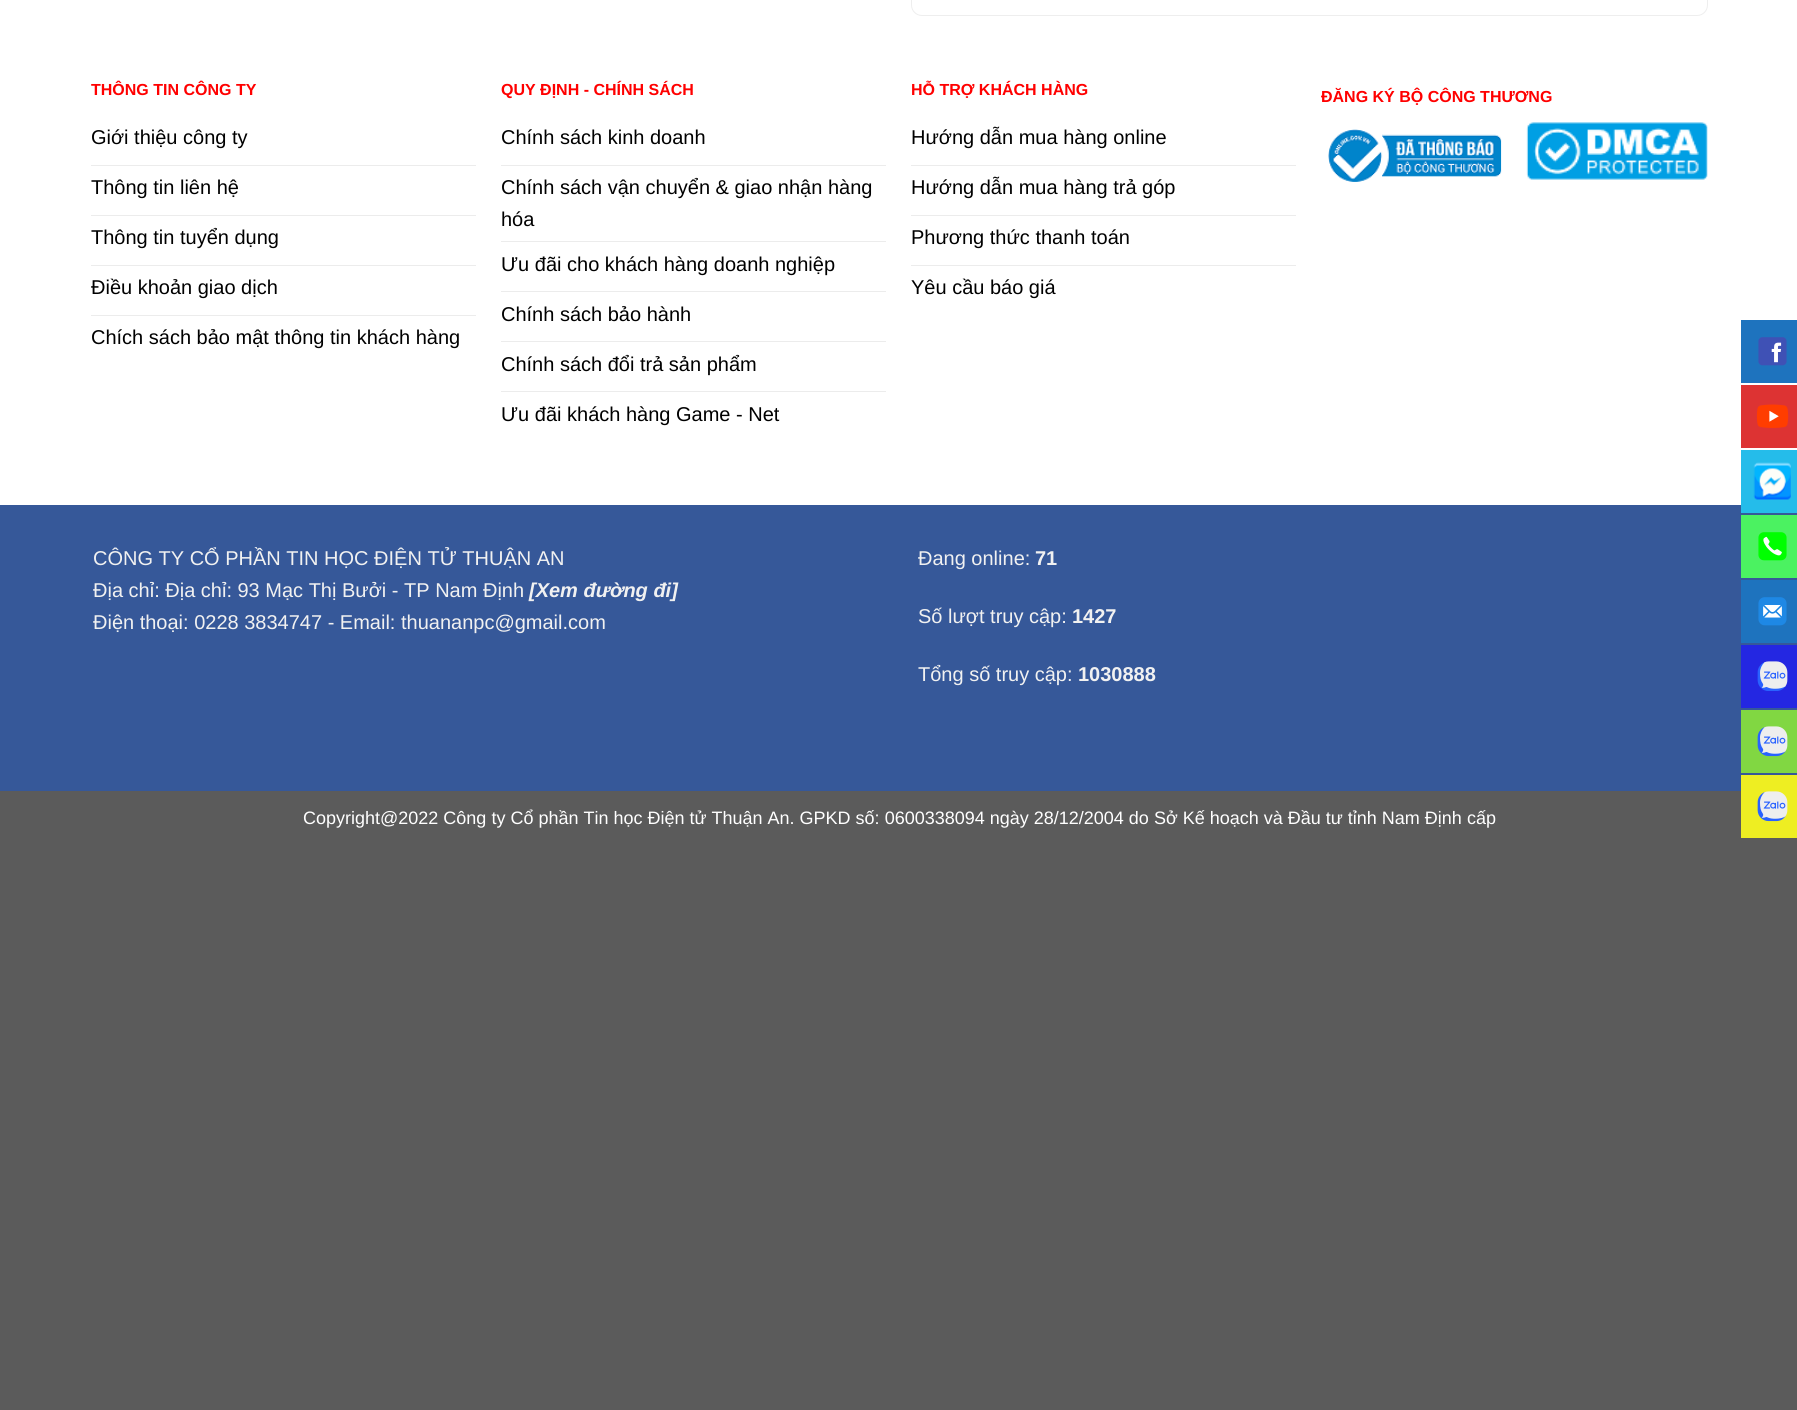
#include <cairo.h>
#include <math.h>
#include <stddef.h>

typedef struct { const char *family; double size; int italic, bold; unsigned color; } style_t;
static cairo_t *ctx;

static void ink(unsigned color) {
    cairo_set_source_rgb(ctx, (color >> 16) / 255.0, (color >> 8 & 255) / 255.0, (color & 255) / 255.0);
}

static void write(double x, double y, const char *s, const style_t *st) {
    cairo_select_font_face(ctx, st->family, st->italic ? CAIRO_FONT_SLANT_ITALIC : CAIRO_FONT_SLANT_NORMAL,
        st->bold ? CAIRO_FONT_WEIGHT_BOLD : CAIRO_FONT_WEIGHT_NORMAL);
    cairo_set_font_size(ctx, st->size);
    ink(st->color);
    cairo_move_to(ctx, x, y);
    cairo_show_text(ctx, s);
}

static void block(double x, double y, double w, double h, unsigned color) {
    ink(color);
    cairo_rectangle(ctx, x, y, w, h);
    cairo_fill(ctx);
}

static void round_path(double x, double y, double w, double h, double r) {
    cairo_new_sub_path(ctx);
    cairo_arc(ctx, x + w - r, y + h - r, r, 0, M_PI / 2);
    cairo_arc(ctx, x + r, y + h - r, r, M_PI / 2, M_PI);
    cairo_arc(ctx, x + r, y + r, r, M_PI, 1.5 * M_PI);
    cairo_arc(ctx, x + w - r, y + r, r, 1.5 * M_PI, 2 * M_PI);
    cairo_close_path(ctx);
}

static void paste(const char *path, double x, double y, double w, double h) {
    cairo_surface_t *image = cairo_image_surface_create_from_png(path);
    cairo_save(ctx);
    cairo_set_source_surface(ctx, image, x, y);
    cairo_rectangle(ctx, x, y, w, h);
    cairo_fill(ctx);
    cairo_restore(ctx);
    cairo_surface_destroy(image);
}

static const style_t s1 = {"Liberation Sans", 16, 0, 1, 0xff0000};
static const style_t s2 = {"Liberation Sans", 20, 0, 0, 0x000000};
static const style_t s3 = {"Liberation Sans", 20, 0, 0, 0xf1f1f1};
static const style_t s4 = {"Liberation Sans", 20, 1, 1, 0xf1f1f1};
static const style_t s5 = {"Liberation Sans", 20, 0, 1, 0xf1f1f1};
static const style_t s6 = {"Liberation Sans", 18, 0, 0, 0xffffff};

int main(void) {
    cairo_surface_t *surface = cairo_image_surface_create(CAIRO_FORMAT_RGB24, 1797, 1410);
    ctx = cairo_create(surface);
    cairo_font_options_t *options = cairo_font_options_create();
    cairo_font_options_set_hint_metrics(options, CAIRO_HINT_METRICS_OFF);
    cairo_font_options_set_hint_style(options, CAIRO_HINT_STYLE_NONE);
    cairo_set_font_options(ctx, options);
    cairo_set_miter_limit(ctx, 4);
    ink(0x5b5b5b);
    cairo_paint(ctx);
    block(0, 0, 1797, 505, 0xffffff);
    round_path(911.5, -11.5, 796, 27, 10.5);
    ink(0xeeeeee);
    cairo_set_line_width(ctx, 1);
    cairo_stroke(ctx);
    write(91, 95, "THÔNG TIN CÔNG TY", &s1);
    block(91, 165, 385, 1, 0xececec);
    write(91, 144, "Giới thiệu công ty", &s2);
    block(91, 215, 385, 1, 0xececec);
    write(91, 194, "Thông tin liên hệ", &s2);
    block(91, 265, 385, 1, 0xececec);
    write(91, 244, "Thông tin tuyển dụng", &s2);
    block(91, 315, 385, 1, 0xececec);
    write(91, 294, "Điều khoản giao dịch", &s2);
    write(91, 344, "Chích sách bảo mật thông tin khách hàng", &s2);
    write(501, 95, "QUY ĐỊNH - CHÍNH SÁCH", &s1);
    block(501, 165, 385, 1, 0xececec);
    write(501, 144, "Chính sách kinh doanh", &s2);
    block(501, 241, 385, 1, 0xececec);
    write(501, 194, "Chính sách vận chuyển & giao nhận hàng", &s2);
    write(501, 226, "hóa", &s2);
    block(501, 291, 385, 1, 0xececec);
    write(501, 271, "Ưu đãi cho khách hàng doanh nghiệp", &s2);
    block(501, 341, 385, 1, 0xececec);
    write(501, 321, "Chính sách bảo hành", &s2);
    block(501, 391, 385, 1, 0xececec);
    write(501, 371, "Chính sách đổi trả sản phẩm", &s2);
    write(501, 421, "Ưu đãi khách hàng Game - Net", &s2);
    write(911, 95, "HỖ TRỢ KHÁCH HÀNG", &s1);
    block(911, 165, 385, 1, 0xececec);
    write(911, 144, "Hướng dẫn mua hàng online", &s2);
    block(911, 215, 385, 1, 0xececec);
    write(911, 194, "Hướng dẫn mua hàng trả góp", &s2);
    block(911, 265, 385, 1, 0xececec);
    write(911, 244, "Phương thức thanh toán", &s2);
    write(911, 294, "Yêu cầu báo giá", &s2);
    write(1321, 102, "ĐĂNG KÝ BỘ CÔNG THƯƠNG", &s1);
    paste("pic1.png", 1328, 129, 174, 53);
    paste("pic2.png", 1526, 122, 182, 58);
    block(0, 505, 1797, 286, 0x365899);
    write(93, 565, "CÔNG TY CỔ PHẦN TIN HỌC ĐIỆN TỬ THUẬN AN", &s3);
    write(93, 597, "Địa chỉ: Địa chỉ: 93 Mạc Thị Bưởi - TP Nam Định", &s3);
    write(529, 597, "[Xem đường đi]", &s4);
    write(93, 629, "Điện thoại: 0228 3834747 - Email: thuananpc@gmail.com", &s3);
    write(918, 565, "Đang online:", &s3);
    write(1035, 565, "71", &s5);
    write(918, 623, "Số lượt truy cập:", &s3);
    write(1072, 623, "1427", &s5);
    write(918, 681, "Tổng số truy cập:", &s3);
    write(1078, 681, "1030888", &s5);
    write(303, 824, "Copyright@2022 Công ty Cổ phần Tin học Điện tử Thuận An. GPKD số: 0600338094 ngày 28/12/2004 do Sở Kế hoạch và Đầu tư tỉnh Nam Định cấp", &s6);
    block(1741, 320, 56, 63, 0x1e73be);
    paste("pic3.png", 1758, 337, 29, 29);
    block(1741, 385, 56, 63, 0xdd3333);
    paste("pic4.png", 1756, 404, 33, 24);
    block(1741, 450, 56, 63, 0x25bcea);
    paste("pic5.png", 1753, 462, 38, 38);
    block(1741, 515, 56, 63, 0x4bf261);
    paste("pic6.png", 1758, 532, 29, 29);
    block(1741, 580, 56, 63, 0x1e73be);
    paste("pic7.png", 1758, 597, 29, 29);
    block(1741, 645, 56, 63, 0x2427e2);
    paste("pic8.png", 1757, 661, 31, 30);
    block(1741, 710, 56, 63, 0x81d742);
    paste("pic9.png", 1757, 726, 31, 31);
    block(1741, 775, 56, 63, 0xeeee22);
    paste("pic10.png", 1757, 791, 31, 31);
    cairo_surface_write_to_png(surface, "screenshot.png");
    cairo_font_options_destroy(options);
    cairo_destroy(ctx);
    cairo_surface_destroy(surface);
    return 0;
}
